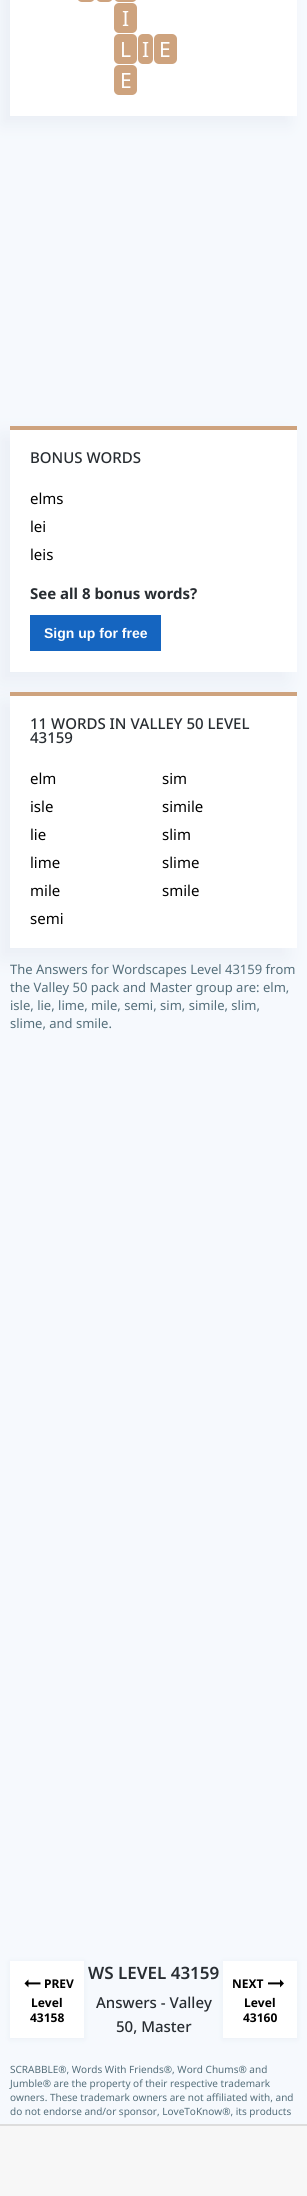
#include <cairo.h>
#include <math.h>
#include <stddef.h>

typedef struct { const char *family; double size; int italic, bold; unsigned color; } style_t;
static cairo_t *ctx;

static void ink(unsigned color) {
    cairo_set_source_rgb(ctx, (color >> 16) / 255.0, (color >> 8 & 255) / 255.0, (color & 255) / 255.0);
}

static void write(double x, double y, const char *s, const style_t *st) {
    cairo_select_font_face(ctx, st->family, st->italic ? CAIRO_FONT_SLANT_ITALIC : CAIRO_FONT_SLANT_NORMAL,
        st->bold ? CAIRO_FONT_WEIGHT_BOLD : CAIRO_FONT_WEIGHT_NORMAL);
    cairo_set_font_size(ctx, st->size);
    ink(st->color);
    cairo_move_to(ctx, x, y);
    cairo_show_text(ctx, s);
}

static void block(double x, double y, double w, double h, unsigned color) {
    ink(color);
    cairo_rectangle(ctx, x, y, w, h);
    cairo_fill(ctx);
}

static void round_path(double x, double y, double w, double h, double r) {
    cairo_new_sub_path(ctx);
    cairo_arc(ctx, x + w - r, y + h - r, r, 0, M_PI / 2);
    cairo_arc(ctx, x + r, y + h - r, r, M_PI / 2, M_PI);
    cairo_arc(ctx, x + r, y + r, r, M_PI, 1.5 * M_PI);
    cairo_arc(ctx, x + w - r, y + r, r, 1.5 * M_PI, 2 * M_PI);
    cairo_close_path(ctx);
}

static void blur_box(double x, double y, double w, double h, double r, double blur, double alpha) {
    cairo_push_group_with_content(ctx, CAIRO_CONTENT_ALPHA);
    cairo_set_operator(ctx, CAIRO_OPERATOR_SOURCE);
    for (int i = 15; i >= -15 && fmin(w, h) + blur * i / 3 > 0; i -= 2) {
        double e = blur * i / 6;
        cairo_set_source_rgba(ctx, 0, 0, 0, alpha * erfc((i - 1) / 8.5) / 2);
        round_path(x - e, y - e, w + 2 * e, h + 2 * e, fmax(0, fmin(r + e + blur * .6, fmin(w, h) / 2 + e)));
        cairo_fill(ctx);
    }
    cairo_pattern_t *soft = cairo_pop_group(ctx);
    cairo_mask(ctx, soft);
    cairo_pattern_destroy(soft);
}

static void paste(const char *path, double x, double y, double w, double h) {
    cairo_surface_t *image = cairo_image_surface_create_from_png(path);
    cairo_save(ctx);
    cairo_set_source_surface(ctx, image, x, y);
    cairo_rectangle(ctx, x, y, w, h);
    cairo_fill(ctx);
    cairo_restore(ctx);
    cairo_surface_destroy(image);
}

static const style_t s1 = {"Noto Sans", 21, 0, 0, 0xffffff};
static const style_t s2 = {"Noto Sans Medium", 15, 0, 0, 0x282d32};
static const style_t s3 = {"Noto Sans", 15, 0, 0, 0x000000};
static const style_t s4 = {"Noto Sans", 15, 0, 1, 0x282d32};
static const style_t s5 = {"Liberation Sans", 14, 0, 1, 0xffffff};
static const style_t s6 = {"Noto Sans", 13, 0, 0, 0x546e7a};
static const style_t s7 = {"Noto Sans", 12, 0, 1, 0x000000};
static const style_t s8 = {"Noto Sans SemiBold", 17, 0, 0, 0x282d32};
static const style_t s9 = {"Noto Sans", 10, 0, 0, 0x546e7a};

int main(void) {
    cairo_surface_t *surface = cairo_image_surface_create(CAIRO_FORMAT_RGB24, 307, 2196);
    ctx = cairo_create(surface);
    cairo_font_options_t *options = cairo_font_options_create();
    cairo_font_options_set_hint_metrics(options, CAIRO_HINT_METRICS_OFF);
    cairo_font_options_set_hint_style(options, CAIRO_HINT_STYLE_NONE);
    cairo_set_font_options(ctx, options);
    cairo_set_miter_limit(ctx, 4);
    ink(0xf6f9fd);
    cairo_paint(ctx);
    ink(0x7c93ad);
    blur_box(2, -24, 287, 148, 0, 8, 0.1);
    block(10, 0, 287, 116, 0xffffff);
    ink(0xcea37e);
    round_path(77, -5, 18, 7, 5);
    cairo_fill(ctx);
    round_path(96, -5, 17, 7, 5);
    cairo_fill(ctx);
    round_path(114, -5, 23, 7, 5);
    cairo_fill(ctx);
    round_path(114, 3, 23, 30, 5);
    cairo_fill(ctx);
    write(122, 26, "I", &s1);
    ink(0xcea37e);
    round_path(114, 34, 23, 30, 5);
    cairo_fill(ctx);
    write(120, 57, "L", &s1);
    ink(0xcea37e);
    round_path(138, 34, 15, 30, 5);
    cairo_fill(ctx);
    write(142, 57, "I", &s1);
    ink(0xcea37e);
    round_path(154, 34, 23, 30, 5);
    cairo_fill(ctx);
    write(159, 57, "E", &s1);
    ink(0xcea37e);
    round_path(114, 65, 23, 30, 5);
    cairo_fill(ctx);
    write(120, 88, "E", &s1);
    ink(0x7c93ad);
    blur_box(0, 436, 287, 246, 0, 10, 0.1);
    block(10, 430, 287, 242, 0xffffff);
    block(10, 426, 287, 4, 0xcea37e);
    write(30, 463, "BONUS WORDS", &s2);
    write(30, 504, "elms", &s3);
    write(30, 532, "lei", &s3);
    write(30, 560, "leis", &s3);
    write(30, 599, "See all 8 bonus words?", &s4);
    block(30, 615, 131, 36, 0x1565c0);
    write(44, 638, "Sign up for free", &s5);
    ink(0x7c93ad);
    blur_box(0, 702, 287, 256, 0, 10, 0.1);
    block(10, 696, 287, 252, 0xffffff);
    block(10, 692, 287, 4, 0xcea37e);
    write(30, 729, "11 WORDS IN VALLEY 50 LEVEL", &s2);
    write(30, 743, "43159", &s2);
    write(30, 784, "elm", &s3);
    write(162, 784, "sim", &s3);
    write(30, 812, "isle", &s3);
    write(162, 812, "simile", &s3);
    write(30, 840, "lie", &s3);
    write(162, 840, "slim", &s3);
    write(30, 868, "lime", &s3);
    write(162, 868, "slime", &s3);
    write(30, 896, "mile", &s3);
    write(162, 896, "smile", &s3);
    write(30, 924, "semi", &s3);
    write(10, 974, "The Answers for Wordscapes Level 43159 from", &s6);
    write(10, 992, "the Valley 50 pack and Master group are: elm,", &s6);
    write(10, 1010, "isle, lie, lime, mile, semi, sim, simile, slim,", &s6);
    write(10, 1028, "slime, and smile.", &s6);
    ink(0x7c93ad);
    blur_box(10, 1962, 74, 77, 0, 3, 0.1);
    block(10, 1961, 74, 77, 0xffffff);
    paste("pic1.png", 24, 1979, 17, 9);
    write(44, 1988, "PREV", &s7);
    write(31, 2007, "Level", &s7);
    write(30, 2022, "43158", &s7);
    write(88, 1979, "WS LEVEL 43159", &s8);
    write(96, 2008, "Answers - Valley", &s2);
    write(116, 2032, "50, Master", &s2);
    ink(0x7c93ad);
    blur_box(223, 1962, 74, 77, 0, 3, 0.1);
    block(223, 1961, 74, 77, 0xffffff);
    write(232, 1988, "NEXT", &s7);
    paste("pic2.png", 268, 1979, 16, 9);
    write(244, 2007, "Level", &s7);
    write(243, 2022, "43160", &s7);
    write(10, 2073, "SCRABBLE®, Words With Friends®, Word Chums® and", &s9);
    write(10, 2087, "Jumble® are the property of their respective trademark", &s9);
    write(10, 2101, "owners. These trademark owners are not affiliated with, and", &s9);
    write(10, 2115, "do not endorse and/or sponsor, LoveToKnow®, its products", &s9);
    block(0, 2126, 307, 70, 0xf7f7f7);
    block(0, 2124, 307, 2, 0xdddddd);
    cairo_surface_write_to_png(surface, "screenshot.png");
    cairo_font_options_destroy(options);
    cairo_destroy(ctx);
    cairo_surface_destroy(surface);
    return 0;
}
